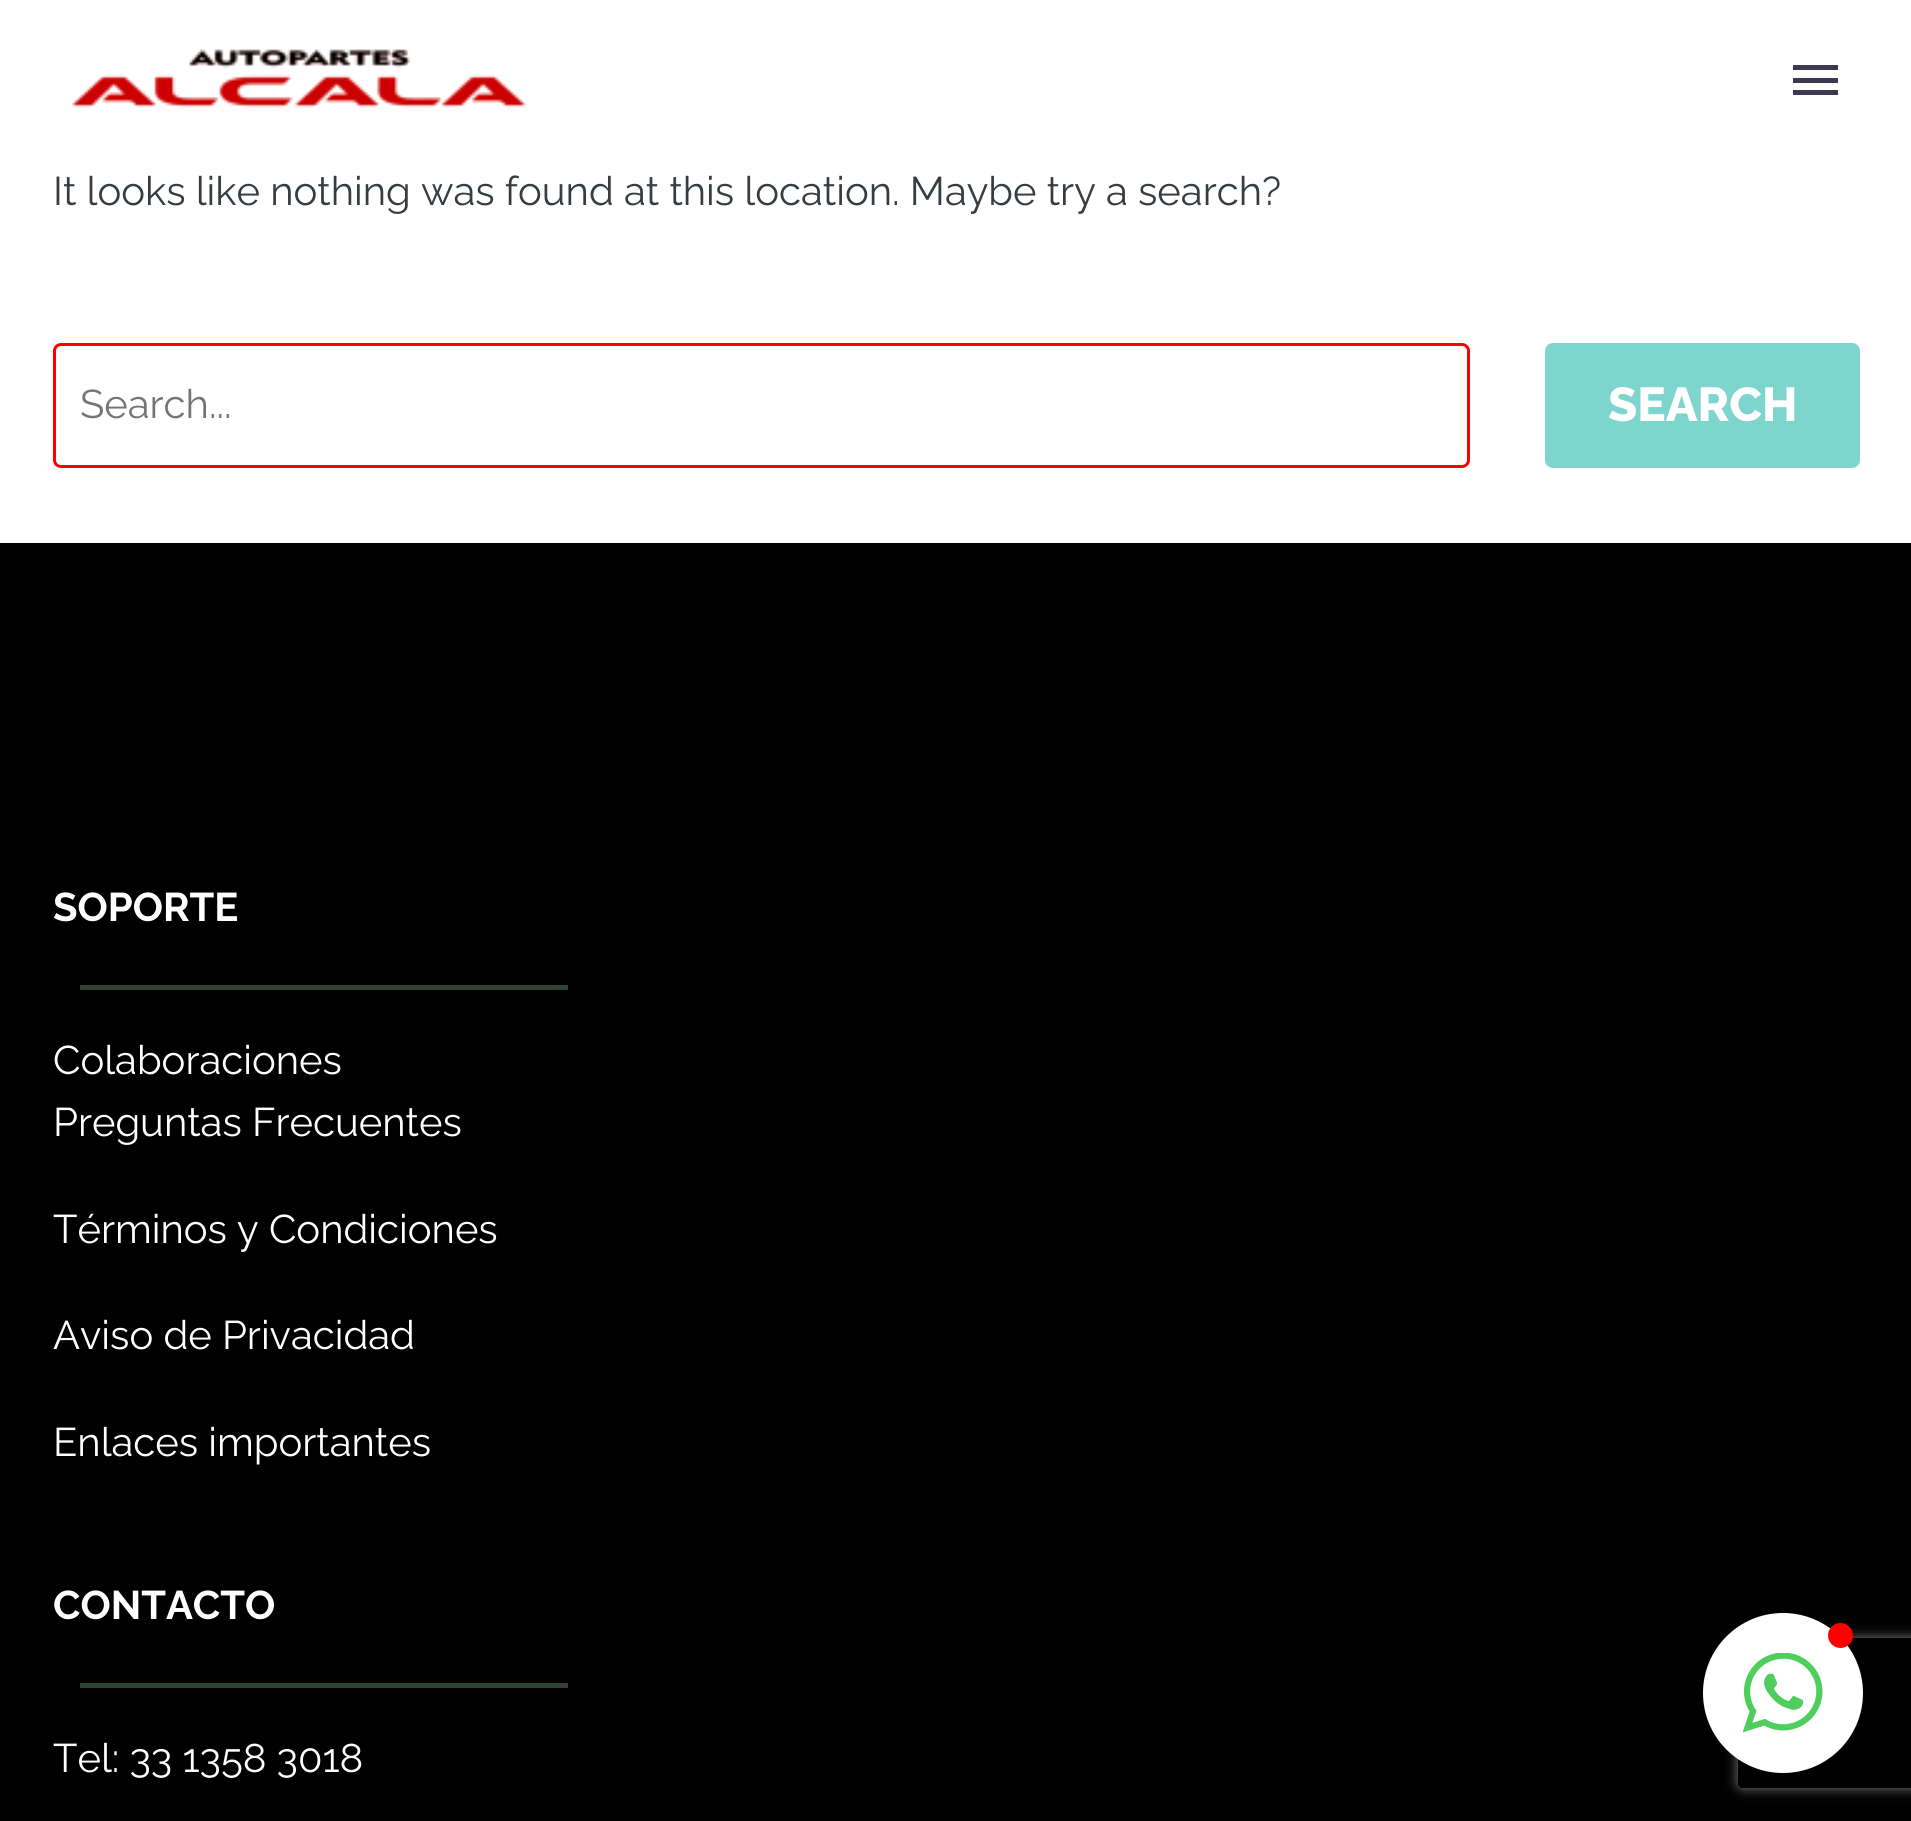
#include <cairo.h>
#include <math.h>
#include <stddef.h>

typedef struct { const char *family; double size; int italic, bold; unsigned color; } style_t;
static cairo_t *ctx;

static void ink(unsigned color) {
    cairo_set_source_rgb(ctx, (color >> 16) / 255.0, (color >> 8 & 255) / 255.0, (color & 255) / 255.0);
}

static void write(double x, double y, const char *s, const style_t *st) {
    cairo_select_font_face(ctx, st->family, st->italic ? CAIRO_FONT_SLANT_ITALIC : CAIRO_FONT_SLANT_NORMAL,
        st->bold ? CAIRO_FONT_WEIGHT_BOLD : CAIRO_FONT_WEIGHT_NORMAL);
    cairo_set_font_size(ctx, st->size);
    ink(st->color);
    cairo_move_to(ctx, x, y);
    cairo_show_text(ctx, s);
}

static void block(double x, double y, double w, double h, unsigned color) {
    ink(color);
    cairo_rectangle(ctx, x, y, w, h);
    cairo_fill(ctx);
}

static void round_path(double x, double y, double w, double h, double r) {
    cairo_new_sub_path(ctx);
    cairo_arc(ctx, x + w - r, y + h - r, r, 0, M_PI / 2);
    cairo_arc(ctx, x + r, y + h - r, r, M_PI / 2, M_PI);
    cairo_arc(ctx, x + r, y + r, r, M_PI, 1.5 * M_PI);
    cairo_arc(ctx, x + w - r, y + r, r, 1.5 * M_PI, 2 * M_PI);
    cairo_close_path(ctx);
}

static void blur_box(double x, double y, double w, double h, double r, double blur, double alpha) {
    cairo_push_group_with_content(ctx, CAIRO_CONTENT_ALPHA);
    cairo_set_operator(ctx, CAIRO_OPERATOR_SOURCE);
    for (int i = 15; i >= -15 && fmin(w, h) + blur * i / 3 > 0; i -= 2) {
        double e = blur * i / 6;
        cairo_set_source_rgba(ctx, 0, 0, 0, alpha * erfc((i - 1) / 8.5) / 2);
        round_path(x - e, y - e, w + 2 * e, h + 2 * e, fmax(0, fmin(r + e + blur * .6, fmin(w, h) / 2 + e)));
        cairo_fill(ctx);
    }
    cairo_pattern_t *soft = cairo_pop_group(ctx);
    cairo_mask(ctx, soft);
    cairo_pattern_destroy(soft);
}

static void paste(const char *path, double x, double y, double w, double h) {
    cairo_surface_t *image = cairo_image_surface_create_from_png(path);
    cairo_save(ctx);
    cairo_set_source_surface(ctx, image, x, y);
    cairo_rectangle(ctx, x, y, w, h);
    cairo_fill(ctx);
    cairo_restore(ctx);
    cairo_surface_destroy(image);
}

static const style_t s1 = {"Raleway", 40, 0, 0, 0x363c40};
static const style_t s2 = {"Raleway", 40, 0, 0, 0x757575};
static const style_t s3 = {"Raleway ExtraBold", 47.5, 0, 0, 0xffffff};
static const style_t s4 = {"Raleway", 40, 0, 1, 0xffffff};
static const style_t s5 = {"Raleway", 40, 0, 0, 0xffffff};

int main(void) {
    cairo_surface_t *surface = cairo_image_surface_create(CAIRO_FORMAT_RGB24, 1911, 1821);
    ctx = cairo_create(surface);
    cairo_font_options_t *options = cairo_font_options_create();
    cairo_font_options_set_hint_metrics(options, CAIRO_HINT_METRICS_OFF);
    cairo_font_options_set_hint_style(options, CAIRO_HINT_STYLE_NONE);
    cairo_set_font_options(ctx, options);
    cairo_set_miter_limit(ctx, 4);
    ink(0xffffff);
    cairo_paint(ctx);
    paste("pic1.png", 72, 49, 454, 59);
    block(1793, 65, 45, 5, 0x3c3950);
    block(1793, 78, 45, 5, 0x3c3950);
    block(1793, 90, 45, 5, 0x3c3950);
    write(53, 205, "It looks like nothing was found at this location. Maybe try a search?", &s1);
    round_path(54.5, 344.5, 1414, 122, 6.5);
    ink(0xff0000);
    cairo_set_line_width(ctx, 3);
    cairo_stroke(ctx);
    write(80, 418, "Search...", &s2);
    ink(0x7dd5cd);
    round_path(1545, 343, 315, 125, 8);
    cairo_fill(ctx);
    write(1608, 421, "SEARCH", &s3);
    block(0, 543, 1911, 1278, 0x000000);
    write(53, 921, "SOPORTE", &s4);
    block(80, 985, 488, 5, 0x314432);
    write(53, 1074, "Colaboraciones", &s5);
    write(53, 1136, "Preguntas Frecuentes", &s5);
    write(53, 1243, "Términos y Condiciones", &s5);
    write(53, 1349, "Aviso de Privacidad", &s5);
    write(53, 1456, "Enlaces importantes", &s5);
    write(53, 1619, "CONTACTO", &s4);
    block(80, 1683, 488, 5, 0x314432);
    write(53, 1772, "Tel: 33 1358 3018", &s5);
    cairo_save(ctx);
    cairo_set_fill_rule(ctx, CAIRO_FILL_RULE_EVEN_ODD);
    cairo_new_path(ctx);
    cairo_move_to(ctx, 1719, 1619);
    cairo_line_to(ctx, 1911, 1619);
    cairo_line_to(ctx, 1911, 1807);
    cairo_line_to(ctx, 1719, 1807);
    cairo_close_path(ctx);
    cairo_move_to(ctx, 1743, 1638);
    cairo_line_to(ctx, 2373, 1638);
    cairo_curve_to(ctx, 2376, 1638, 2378, 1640, 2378, 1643);
    cairo_line_to(ctx, 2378, 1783);
    cairo_curve_to(ctx, 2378, 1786, 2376, 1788, 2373, 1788);
    cairo_line_to(ctx, 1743, 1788);
    cairo_curve_to(ctx, 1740, 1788, 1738, 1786, 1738, 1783);
    cairo_line_to(ctx, 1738, 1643);
    cairo_curve_to(ctx, 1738, 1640, 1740, 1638, 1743, 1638);
    cairo_close_path(ctx);
    cairo_clip(ctx);
    ink(0x808080);
    blur_box(1738, 1638, 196, 150, 5, 6, 1);
    cairo_restore(ctx);
    cairo_arc(ctx, 1783, 1693, 80, 0, 2 * M_PI);
    cairo_fill(ctx);
    ink(0xff0000);
    cairo_arc(ctx, 1840.5, 1635.5, 12.5, 0, 2 * M_PI);
    cairo_fill(ctx);
    paste("pic2.png", 1743, 1653, 80, 80);
    cairo_surface_write_to_png(surface, "screenshot.png");
    cairo_font_options_destroy(options);
    cairo_destroy(ctx);
    cairo_surface_destroy(surface);
    return 0;
}
